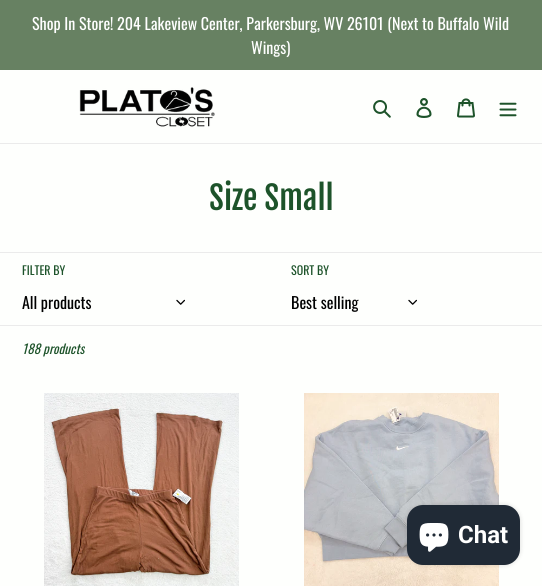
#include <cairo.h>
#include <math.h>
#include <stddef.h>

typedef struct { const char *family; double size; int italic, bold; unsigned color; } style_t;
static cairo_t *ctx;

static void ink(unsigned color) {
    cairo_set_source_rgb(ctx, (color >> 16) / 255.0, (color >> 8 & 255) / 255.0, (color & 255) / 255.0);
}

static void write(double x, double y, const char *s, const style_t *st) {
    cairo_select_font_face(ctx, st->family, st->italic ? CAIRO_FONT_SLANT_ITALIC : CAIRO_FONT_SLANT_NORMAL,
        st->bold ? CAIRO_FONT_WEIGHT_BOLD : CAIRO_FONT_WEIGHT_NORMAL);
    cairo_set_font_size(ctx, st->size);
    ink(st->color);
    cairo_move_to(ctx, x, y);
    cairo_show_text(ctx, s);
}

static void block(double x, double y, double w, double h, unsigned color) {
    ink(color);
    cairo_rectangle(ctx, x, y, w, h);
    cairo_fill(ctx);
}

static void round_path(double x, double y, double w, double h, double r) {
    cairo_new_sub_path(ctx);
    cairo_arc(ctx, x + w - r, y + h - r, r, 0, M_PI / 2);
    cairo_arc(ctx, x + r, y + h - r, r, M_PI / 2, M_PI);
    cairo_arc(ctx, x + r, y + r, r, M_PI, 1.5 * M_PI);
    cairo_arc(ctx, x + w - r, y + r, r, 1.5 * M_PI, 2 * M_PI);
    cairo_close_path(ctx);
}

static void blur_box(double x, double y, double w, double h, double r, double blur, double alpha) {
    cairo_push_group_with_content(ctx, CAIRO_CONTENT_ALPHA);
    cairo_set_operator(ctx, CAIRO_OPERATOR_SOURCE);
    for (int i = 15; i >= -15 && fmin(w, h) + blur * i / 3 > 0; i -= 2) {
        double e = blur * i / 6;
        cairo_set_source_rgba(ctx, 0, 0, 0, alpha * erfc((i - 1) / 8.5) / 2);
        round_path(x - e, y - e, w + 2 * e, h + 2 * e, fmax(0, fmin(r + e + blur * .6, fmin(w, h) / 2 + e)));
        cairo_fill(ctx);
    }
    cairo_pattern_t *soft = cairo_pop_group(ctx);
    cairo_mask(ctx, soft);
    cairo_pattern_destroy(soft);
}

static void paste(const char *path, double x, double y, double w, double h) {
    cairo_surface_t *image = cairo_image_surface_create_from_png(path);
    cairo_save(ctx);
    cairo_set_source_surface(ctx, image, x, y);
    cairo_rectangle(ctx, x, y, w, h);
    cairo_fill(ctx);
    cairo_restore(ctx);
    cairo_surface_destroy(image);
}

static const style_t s1 = {"Oswald", 16, 0, 0, 0xffffff};
static const style_t s2 = {"Fjalla One", 32, 0, 0, 0x1d532a};
static const style_t s3 = {"Oswald", 12, 0, 0, 0x1d532a};
static const style_t s4 = {"Oswald", 16, 0, 0, 0x000000};
static const style_t s5 = {"Oswald", 13, 1, 0, 0x1d532a};
static const style_t s6 = {"Roboto", 24, 0, 1, 0xffffff};

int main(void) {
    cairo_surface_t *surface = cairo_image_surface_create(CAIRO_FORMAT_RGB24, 542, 586);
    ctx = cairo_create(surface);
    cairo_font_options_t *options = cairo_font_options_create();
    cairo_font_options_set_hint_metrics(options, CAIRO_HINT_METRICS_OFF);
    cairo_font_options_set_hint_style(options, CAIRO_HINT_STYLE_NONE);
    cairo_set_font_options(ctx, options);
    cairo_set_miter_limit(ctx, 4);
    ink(0xfefffd);
    cairo_paint(ctx);
    block(0, 0, 542, 70, 0x678162);
    write(32, 30, "Shop In Store! 204 Lakeview Center, Parkersburg, WV 26101 (Next to Buffalo Wild", &s1);
    write(251, 54, "Wings)", &s1);
    block(0, 143, 542, 1, 0xebebeb);
    paste("pic1.png", 79, 87, 136, 40);
    paste("pic2.png", 373, 100, 18, 18);
    paste("pic3.png", 416, 98, 16, 20);
    paste("pic4.png", 457, 98, 18, 20);
    paste("pic5.png", 499, 102, 18, 15);
    write(209, 210, "Size Small", &s2);
    block(0, 252, 542, 1, 0xebebeb);
    write(22, 275, "FILTER BY", &s3);
    write(22, 309, "All products", &s4);
    paste("pic6.png", 176, 299, 9, 6);
    write(291, 275, "SORT BY", &s3);
    write(291, 309, "Best selling", &s4);
    paste("pic6.png", 408, 299, 9, 6);
    block(0, 325, 542, 1, 0xebebeb);
    write(22, 354, "188 products", &s5);
    paste("pic7.png", 44, 393, 195, 193);
    paste("pic8.png", 304, 393, 195, 193);
    ink(0x000000);
    blur_box(407, 505, 113, 60, 16, 2.5, 0.15);
    ink(0x202a36);
    round_path(407, 505, 113, 60, 16);
    cairo_fill(ctx);
    paste("pic9.png", 419, 523, 30, 29);
    write(458, 543, "Chat", &s6);
    cairo_surface_write_to_png(surface, "screenshot.png");
    cairo_font_options_destroy(options);
    cairo_destroy(ctx);
    cairo_surface_destroy(surface);
    return 0;
}
